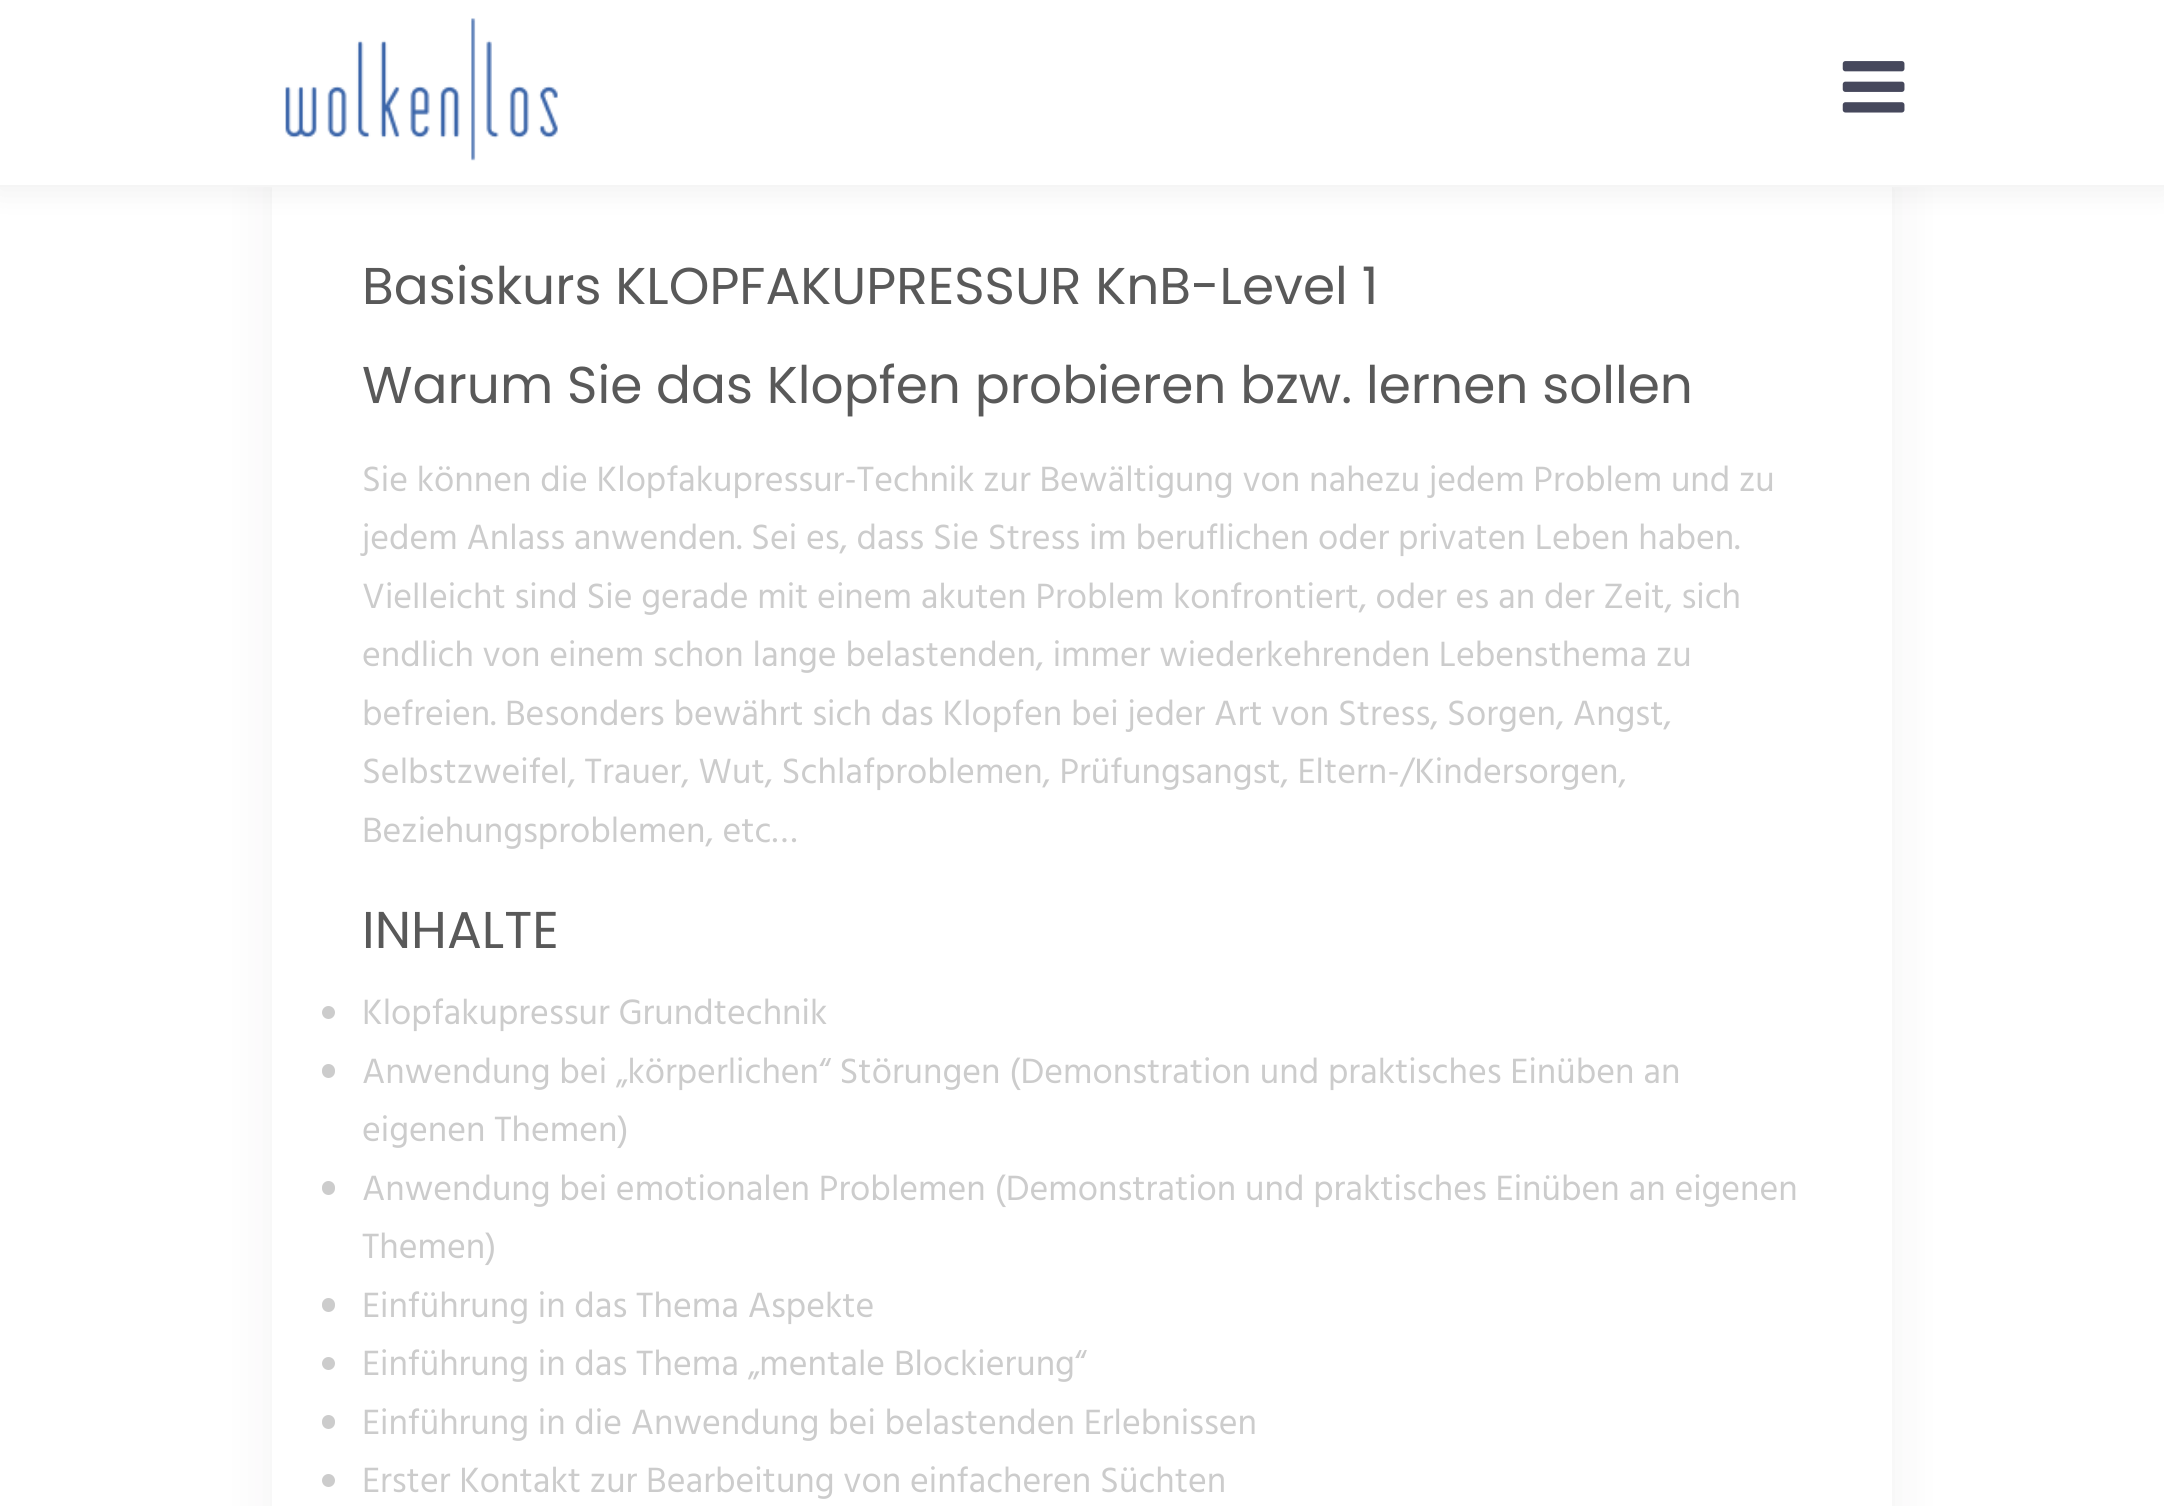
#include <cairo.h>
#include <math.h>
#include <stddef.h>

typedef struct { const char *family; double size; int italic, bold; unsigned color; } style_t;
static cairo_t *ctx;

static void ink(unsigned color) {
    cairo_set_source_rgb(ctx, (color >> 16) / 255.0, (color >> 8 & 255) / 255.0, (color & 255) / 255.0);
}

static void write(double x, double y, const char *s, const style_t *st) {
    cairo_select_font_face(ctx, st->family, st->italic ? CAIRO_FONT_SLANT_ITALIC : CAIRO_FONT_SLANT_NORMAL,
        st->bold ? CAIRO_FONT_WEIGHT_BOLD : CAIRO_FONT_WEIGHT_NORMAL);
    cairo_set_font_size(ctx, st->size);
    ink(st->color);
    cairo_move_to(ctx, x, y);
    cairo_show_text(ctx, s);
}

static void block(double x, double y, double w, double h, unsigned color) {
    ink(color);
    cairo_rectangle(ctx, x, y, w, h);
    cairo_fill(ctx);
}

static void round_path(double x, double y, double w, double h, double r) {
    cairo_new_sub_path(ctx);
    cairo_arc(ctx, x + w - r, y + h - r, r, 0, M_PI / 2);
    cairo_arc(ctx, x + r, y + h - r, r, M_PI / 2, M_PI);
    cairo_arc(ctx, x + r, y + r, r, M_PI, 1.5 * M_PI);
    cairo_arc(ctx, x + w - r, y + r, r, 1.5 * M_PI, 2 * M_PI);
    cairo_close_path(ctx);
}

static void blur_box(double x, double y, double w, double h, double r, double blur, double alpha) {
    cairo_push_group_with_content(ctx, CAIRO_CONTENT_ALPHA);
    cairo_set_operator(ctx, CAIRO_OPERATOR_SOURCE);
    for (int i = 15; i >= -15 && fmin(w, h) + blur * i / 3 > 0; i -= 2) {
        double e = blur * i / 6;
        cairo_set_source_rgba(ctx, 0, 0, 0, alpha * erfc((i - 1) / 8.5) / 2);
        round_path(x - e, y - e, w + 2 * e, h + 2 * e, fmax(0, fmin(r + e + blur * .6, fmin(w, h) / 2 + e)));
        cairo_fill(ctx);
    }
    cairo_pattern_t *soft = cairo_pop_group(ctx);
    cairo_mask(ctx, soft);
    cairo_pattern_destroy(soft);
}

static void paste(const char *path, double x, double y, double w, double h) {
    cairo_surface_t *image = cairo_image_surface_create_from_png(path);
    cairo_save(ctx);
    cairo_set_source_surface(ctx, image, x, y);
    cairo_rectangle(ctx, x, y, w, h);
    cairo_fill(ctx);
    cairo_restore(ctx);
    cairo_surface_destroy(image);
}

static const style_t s1 = {"Poppins", 51.75, 0, 0, 0x595959};
static const style_t s2 = {"Hind", 36, 0, 0, 0xcccccc};

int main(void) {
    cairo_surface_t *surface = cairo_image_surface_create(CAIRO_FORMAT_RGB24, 2164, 1506);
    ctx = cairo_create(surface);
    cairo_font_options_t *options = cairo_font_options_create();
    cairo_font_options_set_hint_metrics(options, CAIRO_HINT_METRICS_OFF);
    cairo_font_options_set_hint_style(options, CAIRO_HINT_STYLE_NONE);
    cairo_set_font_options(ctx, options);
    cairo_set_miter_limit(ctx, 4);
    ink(0xffffff);
    cairo_paint(ctx);
    ink(0x231f20);
    blur_box(266, 180, 1633, 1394, 0, 22.5, 0.05);
    block(272, 187, 1620, 1319, 0xffffff);
    ink(0x000000);
    blur_box(-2, -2, 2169, 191, 0, 17, 0.07);
    block(0, 0, 2164, 185, 0xffffff);
    block(0, 185, 2164, 2, 0xf5f5f5);
    paste("pic1.png", 285, 18, 273, 143);
    paste("pic2.png", 1842, 61, 63, 52);
    write(362, 304, "Basiskurs KLOPFAKUPRESSUR KnB-Level 1", &s1);
    write(362, 403, "Warum Sie das Klopfen probieren bzw. lernen sollen", &s1);
    write(362, 491, "Sie können die Klopfakupressur-Technik zur Bewältigung von nahezu jedem Problem und zu", &s2);
    write(362, 549, "jedem Anlass anwenden. Sei es, dass Sie Stress im beruflichen oder privaten Leben haben.", &s2);
    write(362, 608, "Vielleicht sind Sie gerade mit einem akuten Problem konfrontiert, oder es an der Zeit, sich", &s2);
    write(362, 666, "endlich von einem schon lange belastenden, immer wiederkehrenden Lebensthema zu", &s2);
    write(362, 725, "befreien. Besonders bewährt sich das Klopfen bei jeder Art von Stress, Sorgen, Angst,", &s2);
    write(362, 783, "Selbstzweifel, Trauer, Wut, Schlafproblemen, Prüfungsangst, Eltern-/Kindersorgen,", &s2);
    write(362, 842, "Beziehungsproblemen, etc…", &s2);
    write(362, 948, "INHALTE", &s1);
    ink(0xcccccc);
    cairo_new_path(ctx);
    cairo_arc(ctx, 328.5, 1012.5, 6.5, 0, 2 * M_PI);
    cairo_fill(ctx);
    write(362, 1024, "Klopfakupressur Grundtechnik", &s2);
    round_path(322, 1064, 13, 14, 6.5);
    cairo_fill(ctx);
    write(362, 1083, "Anwendung bei „körperlichen“ Störungen (Demonstration und praktisches Einüben an", &s2);
    write(362, 1141, "eigenen Themen)", &s2);
    round_path(322, 1181, 13, 14, 6.5);
    cairo_fill(ctx);
    write(362, 1200, "Anwendung bei emotionalen Problemen (Demonstration und praktisches Einüben an eigenen", &s2);
    write(362, 1258, "Themen)", &s2);
    round_path(322, 1298, 13, 14, 6.5);
    cairo_fill(ctx);
    write(362, 1317, "Einführung in das Thema Aspekte", &s2);
    cairo_new_path(ctx);
    cairo_arc(ctx, 328.5, 1363.5, 6.5, 0, 2 * M_PI);
    cairo_fill(ctx);
    write(362, 1375, "Einführung in das Thema „mentale Blockierung“", &s2);
    round_path(322, 1415, 13, 14, 6.5);
    cairo_fill(ctx);
    write(362, 1434, "Einführung in die Anwendung bei belastenden Erlebnissen", &s2);
    cairo_new_path(ctx);
    cairo_arc(ctx, 328.5, 1480.5, 6.5, 0, 2 * M_PI);
    cairo_fill(ctx);
    write(362, 1492, "Erster Kontakt zur Bearbeitung von einfacheren Süchten", &s2);
    cairo_surface_write_to_png(surface, "screenshot.png");
    cairo_font_options_destroy(options);
    cairo_destroy(ctx);
    cairo_surface_destroy(surface);
    return 0;
}
